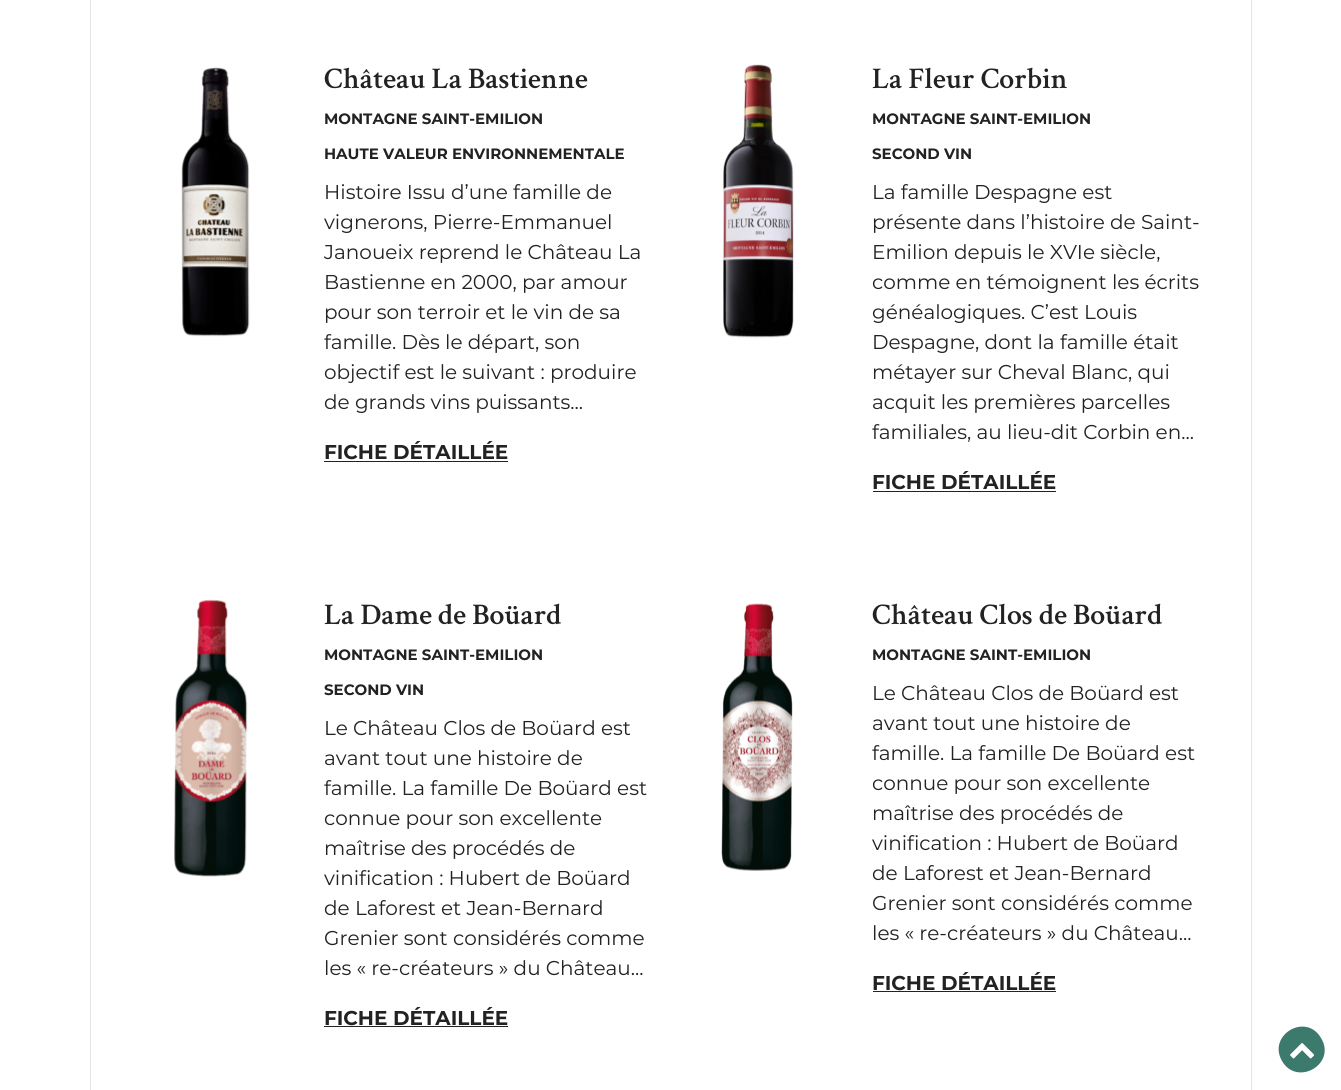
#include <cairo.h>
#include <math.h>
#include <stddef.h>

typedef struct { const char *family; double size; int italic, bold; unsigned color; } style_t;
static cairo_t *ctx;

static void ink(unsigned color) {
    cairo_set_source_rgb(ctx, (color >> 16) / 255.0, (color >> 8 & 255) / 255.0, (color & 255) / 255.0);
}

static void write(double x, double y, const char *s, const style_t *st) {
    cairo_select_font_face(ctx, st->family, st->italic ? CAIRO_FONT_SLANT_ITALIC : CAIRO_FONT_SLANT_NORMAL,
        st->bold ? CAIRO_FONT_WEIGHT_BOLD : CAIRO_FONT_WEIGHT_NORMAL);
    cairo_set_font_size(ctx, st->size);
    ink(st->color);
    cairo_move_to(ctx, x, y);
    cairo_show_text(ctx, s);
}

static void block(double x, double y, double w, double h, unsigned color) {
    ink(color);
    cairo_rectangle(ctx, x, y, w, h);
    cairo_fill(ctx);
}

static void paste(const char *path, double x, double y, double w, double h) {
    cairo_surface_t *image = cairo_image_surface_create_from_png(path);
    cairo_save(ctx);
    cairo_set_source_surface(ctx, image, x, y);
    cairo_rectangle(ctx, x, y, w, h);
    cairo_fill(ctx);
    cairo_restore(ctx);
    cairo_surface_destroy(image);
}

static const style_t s1 = {"Crimson Text SemiBold", 30, 0, 0, 0x222222};
static const style_t s2 = {"Montserrat", 15, 0, 1, 0x222222};
static const style_t s3 = {"Montserrat", 20, 0, 0, 0x222222};
static const style_t s4 = {"Montserrat", 20, 0, 1, 0x222222};

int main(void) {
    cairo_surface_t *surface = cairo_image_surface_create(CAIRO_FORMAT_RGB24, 1341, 1090);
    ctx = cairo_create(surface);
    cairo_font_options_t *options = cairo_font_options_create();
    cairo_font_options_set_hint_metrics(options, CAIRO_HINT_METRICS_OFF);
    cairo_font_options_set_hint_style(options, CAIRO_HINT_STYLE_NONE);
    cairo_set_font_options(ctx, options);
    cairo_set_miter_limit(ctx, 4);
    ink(0xffffff);
    cairo_paint(ctx);
    block(1251, 0, 1, 1090, 0xe5e5e5);
    block(90, 0, 1, 1090, 0xe5e5e5);
    paste("pic1.png", 181, 67, 69, 270);
    write(324, 88, "Château La Bastienne", &s1);
    write(324, 124, "MONTAGNE SAINT-EMILION", &s2);
    write(324, 159, "HAUTE VALEUR ENVIRONNEMENTALE", &s2);
    write(324, 199, "Histoire Issu d’une famille de", &s3);
    write(324, 229, "vignerons, Pierre-Emmanuel", &s3);
    write(324, 259, "Janoueix reprend le Château La", &s3);
    write(324, 289, "Bastienne en 2000, par amour", &s3);
    write(324, 319, "pour son terroir et le vin de sa", &s3);
    write(324, 349, "famille. Dès le départ, son", &s3);
    write(324, 379, "objectif est le suivant : produire", &s3);
    write(324, 409, "de grands vins puissants...", &s3);
    write(324, 459, "FICHE DÉTAILLÉE", &s4);
    block(324, 461, 184, 1, 0x222222);
    paste("pic2.png", 723, 64, 71, 274);
    write(872, 88, "La Fleur Corbin", &s1);
    write(872, 124, "MONTAGNE SAINT-EMILION", &s2);
    write(872, 159, "SECOND VIN", &s2);
    write(872, 199, "La famille Despagne est", &s3);
    write(872, 229, "présente dans l’histoire de Saint-", &s3);
    write(872, 259, "Emilion depuis le XVIe siècle,", &s3);
    write(872, 289, "comme en témoignent les écrits", &s3);
    write(872, 319, "généalogiques. C’est Louis", &s3);
    write(872, 349, "Despagne, dont la famille était", &s3);
    write(872, 379, "métayer sur Cheval Blanc, qui", &s3);
    write(872, 409, "acquit les premières parcelles", &s3);
    write(872, 439, "familiales, au lieu-dit Corbin en...", &s3);
    write(872, 489, "FICHE DÉTAILLÉE", &s4);
    block(873, 491, 183, 1, 0x222222);
    paste("pic3.png", 174, 599, 74, 278);
    write(324, 624, "La Dame de Boüard", &s1);
    write(324, 660, "MONTAGNE SAINT-EMILION", &s2);
    write(324, 695, "SECOND VIN", &s2);
    write(324, 735, "Le Château Clos de Boüard est", &s3);
    write(324, 765, "avant tout une histoire de", &s3);
    write(324, 795, "famille. La famille De Boüard est", &s3);
    write(324, 825, "connue pour son excellente", &s3);
    write(324, 855, "maîtrise des procédés de", &s3);
    write(324, 885, "vinification : Hubert de Boüard", &s3);
    write(324, 915, "de Laforest et Jean-Bernard", &s3);
    write(324, 945, "Grenier sont considérés comme", &s3);
    write(324, 975, "les « re-créateurs » du Château...", &s3);
    write(324, 1025, "FICHE DÉTAILLÉE", &s4);
    block(324, 1026, 184, 1, 0x222222);
    paste("pic4.png", 721, 603, 72, 268);
    write(872, 624, "Château Clos de Boüard", &s1);
    write(872, 660, "MONTAGNE SAINT-EMILION", &s2);
    write(872, 700, "Le Château Clos de Boüard est", &s3);
    write(872, 730, "avant tout une histoire de", &s3);
    write(872, 760, "famille. La famille De Boüard est", &s3);
    write(872, 790, "connue pour son excellente", &s3);
    write(872, 820, "maîtrise des procédés de", &s3);
    write(872, 850, "vinification : Hubert de Boüard", &s3);
    write(872, 880, "de Laforest et Jean-Bernard", &s3);
    write(872, 910, "Grenier sont considérés comme", &s3);
    write(872, 940, "les « re-créateurs » du Château...", &s3);
    write(872, 990, "FICHE DÉTAILLÉE", &s4);
    block(873, 991, 183, 1, 0x222222);
    ink(0x3c7a6e);
    cairo_new_path(ctx);
    cairo_move_to(ctx, 1321, 1038);
    cairo_curve_to(ctx, 1337, 1064, 1297, 1087, 1282, 1061);
    cairo_curve_to(ctx, 1267, 1035, 1306, 1012, 1321, 1038);
    cairo_close_path(ctx);
    cairo_fill(ctx);
    paste("pic5.png", 1290, 1043, 24, 16);
    cairo_surface_write_to_png(surface, "screenshot.png");
    cairo_font_options_destroy(options);
    cairo_destroy(ctx);
    cairo_surface_destroy(surface);
    return 0;
}
